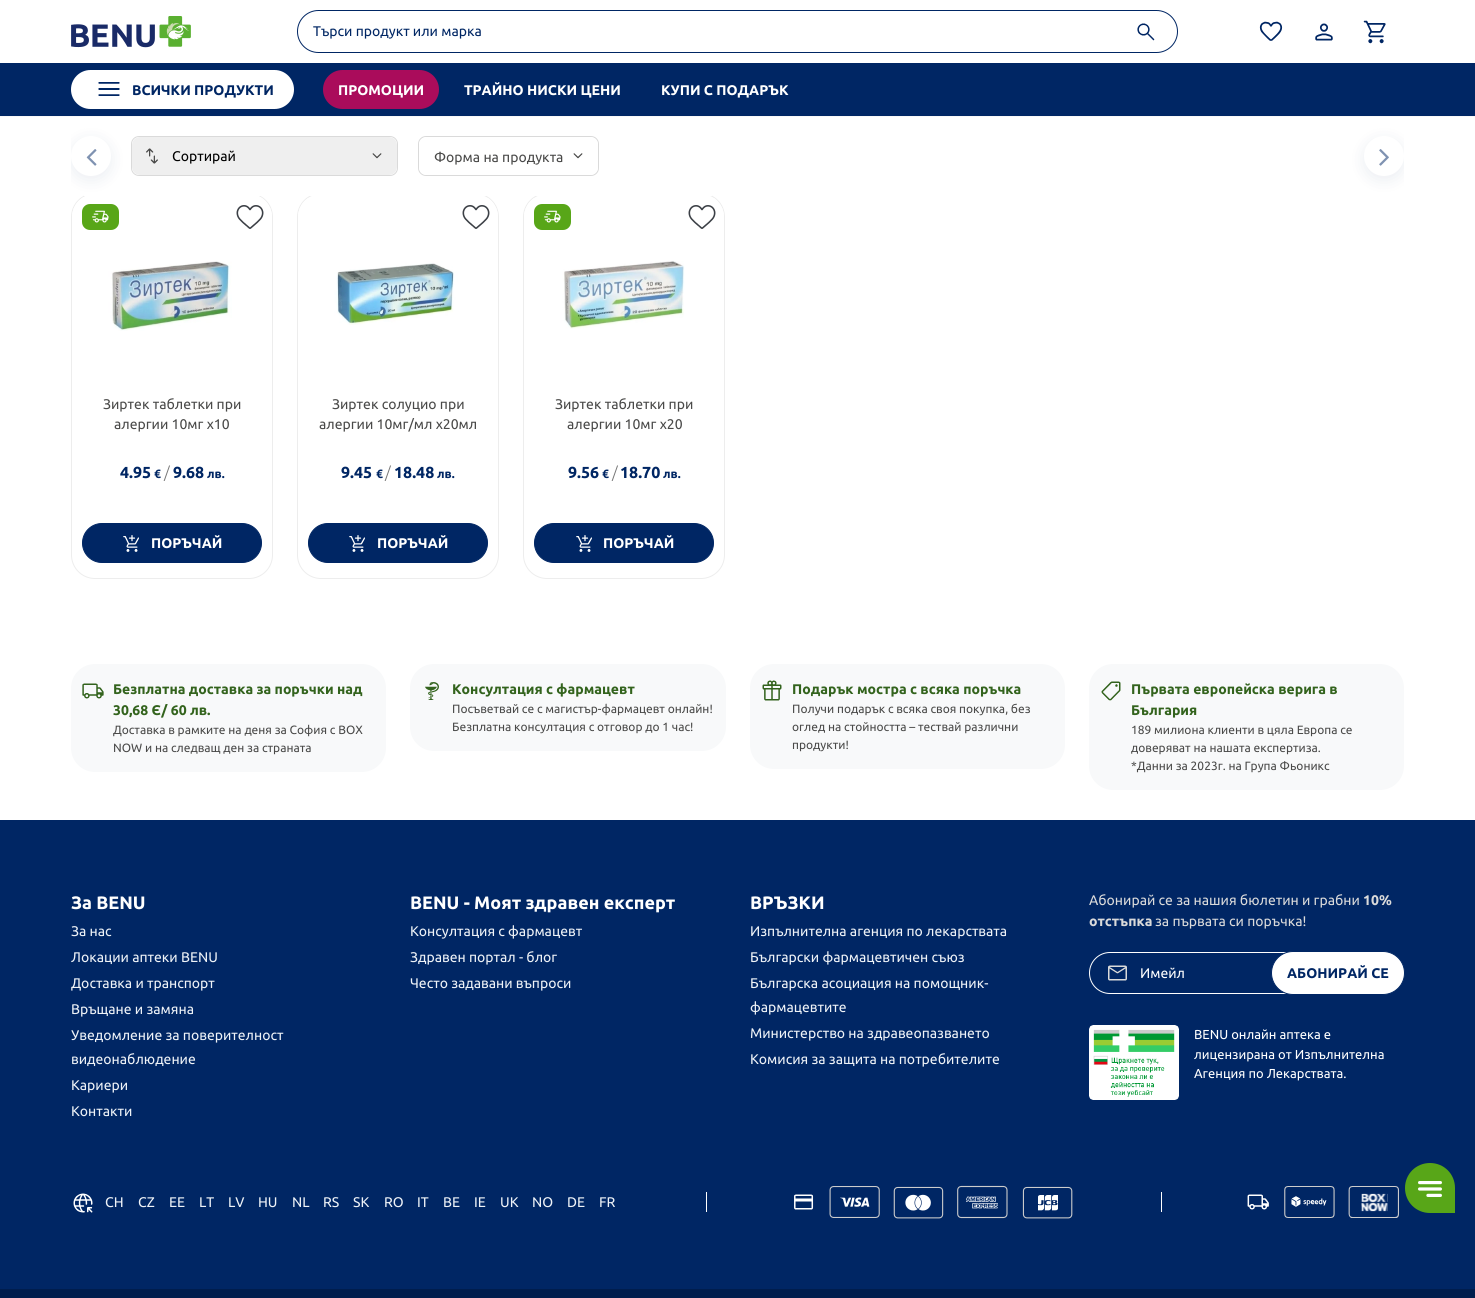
#include <cairo.h>
#include <math.h>
#include <stddef.h>

typedef struct { const char *family; double size; int italic, bold; unsigned color; } style_t;
static cairo_t *ctx;

static void ink(unsigned color) {
    cairo_set_source_rgb(ctx, (color >> 16) / 255.0, (color >> 8 & 255) / 255.0, (color & 255) / 255.0);
}

static void write(double x, double y, const char *s, const style_t *st) {
    cairo_select_font_face(ctx, st->family, st->italic ? CAIRO_FONT_SLANT_ITALIC : CAIRO_FONT_SLANT_NORMAL,
        st->bold ? CAIRO_FONT_WEIGHT_BOLD : CAIRO_FONT_WEIGHT_NORMAL);
    cairo_set_font_size(ctx, st->size);
    ink(st->color);
    cairo_move_to(ctx, x, y);
    cairo_show_text(ctx, s);
}

static void block(double x, double y, double w, double h, unsigned color) {
    ink(color);
    cairo_rectangle(ctx, x, y, w, h);
    cairo_fill(ctx);
}

static void round_path(double x, double y, double w, double h, double r) {
    cairo_new_sub_path(ctx);
    cairo_arc(ctx, x + w - r, y + h - r, r, 0, M_PI / 2);
    cairo_arc(ctx, x + r, y + h - r, r, M_PI / 2, M_PI);
    cairo_arc(ctx, x + r, y + r, r, M_PI, 1.5 * M_PI);
    cairo_arc(ctx, x + w - r, y + r, r, 1.5 * M_PI, 2 * M_PI);
    cairo_close_path(ctx);
}

static void blur_box(double x, double y, double w, double h, double r, double blur, double alpha) {
    cairo_push_group_with_content(ctx, CAIRO_CONTENT_ALPHA);
    cairo_set_operator(ctx, CAIRO_OPERATOR_SOURCE);
    for (int i = 15; i >= -15 && fmin(w, h) + blur * i / 3 > 0; i -= 2) {
        double e = blur * i / 6;
        cairo_set_source_rgba(ctx, 0, 0, 0, alpha * erfc((i - 1) / 8.5) / 2);
        round_path(x - e, y - e, w + 2 * e, h + 2 * e, fmax(0, fmin(r + e + blur * .6, fmin(w, h) / 2 + e)));
        cairo_fill(ctx);
    }
    cairo_pattern_t *soft = cairo_pop_group(ctx);
    cairo_mask(ctx, soft);
    cairo_pattern_destroy(soft);
}

static void paste(const char *path, double x, double y, double w, double h) {
    cairo_surface_t *image = cairo_image_surface_create_from_png(path);
    cairo_save(ctx);
    cairo_set_source_surface(ctx, image, x, y);
    cairo_rectangle(ctx, x, y, w, h);
    cairo_fill(ctx);
    cairo_restore(ctx);
    cairo_surface_destroy(image);
}

static const style_t s1 = {"Ubuntu", 14, 0, 0, 0x002664};
static const style_t s2 = {"Ubuntu", 14, 0, 1, 0x002664};
static const style_t s3 = {"Ubuntu", 14, 0, 1, 0xffffff};
static const style_t s4 = {"Ubuntu", 14, 0, 0, 0x000000};
static const style_t s5 = {"Ubuntu", 14, 0, 0, 0x4a4a49};
static const style_t s6 = {"Ubuntu", 16, 0, 1, 0x002664};
static const style_t s7 = {"Ubuntu", 12, 0, 1, 0x002664};
static const style_t s8 = {"Ubuntu Light", 16, 0, 0, 0x767676};
static const style_t s9 = {"Ubuntu", 14, 0, 1, 0x33631d};
static const style_t s10 = {"Ubuntu", 12, 0, 0, 0x4a4a49};
static const style_t s11 = {"Ubuntu", 18, 0, 1, 0xffffff};
static const style_t s12 = {"Ubuntu", 14, 0, 0, 0xeef2f7};
static const style_t s13 = {"Ubuntu", 14, 0, 0, 0xdadada};
static const style_t s14 = {"Ubuntu", 14, 0, 1, 0xdadada};
static const style_t s15 = {"Ubuntu", 14, 0, 0, 0xffffff};
static const style_t s16 = {"Ubuntu", 13, 0, 0, 0xffffff};

int main(void) {
    cairo_surface_t *surface = cairo_image_surface_create(CAIRO_FORMAT_RGB24, 1475, 1298);
    ctx = cairo_create(surface);
    cairo_font_options_t *options = cairo_font_options_create();
    cairo_font_options_set_hint_metrics(options, CAIRO_HINT_METRICS_OFF);
    cairo_font_options_set_hint_style(options, CAIRO_HINT_STYLE_NONE);
    cairo_set_font_options(ctx, options);
    cairo_set_miter_limit(ctx, 4);
    ink(0xffffff);
    cairo_paint(ctx);
    ink(0x909090);
    blur_box(0, 0, 1475, 116, 0, 0.5, 0.25);
    block(0, 0, 1475, 63, 0xffffff);
    paste("pic1.png", 71, 16, 120, 32);
    round_path(297.5, 10.5, 880, 42, 21);
    ink(0x002664);
    cairo_set_line_width(ctx, 1);
    cairo_stroke(ctx);
    write(313, 36, "Търси продукт или марка", &s1);
    paste("pic2.png", 1137, 23, 18, 18);
    paste("pic3.png", 1259, 21, 24, 20);
    paste("pic4.png", 1315, 23, 18, 18);
    paste("pic5.png", 1363, 20, 23, 24);
    round_path(71.5, 193.5, 201, 385, 23.5);
    ink(0xededed);
    cairo_stroke(ctx);
    round_path(297.5, 193.5, 201, 385, 23.5);
    cairo_stroke(ctx);
    round_path(523.5, 193.5, 201, 385, 23.5);
    cairo_stroke(ctx);
    block(84, 193, 628, 3, 0xffffff);
    round_path(131.5, 136.5, 266, 39, 7.5);
    ink(0xdadada);
    cairo_stroke(ctx);
    ink(0xefefef);
    round_path(132, 137, 265, 38, 8);
    cairo_fill(ctx);
    paste("pic14.png", 72, 196, 200, 135);
    ink(0x58a618);
    round_path(82, 204, 37, 26, 8);
    cairo_fill(ctx);
    cairo_save(ctx);
    cairo_rectangle(ctx, 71, 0, 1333, 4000);
    cairo_clip(ctx);
    ink(0x8093b2);
    blur_box(71, 140, 40, 40, 20, 8, 0.16);
    blur_box(1364, 140, 40, 40, 20, 8, 0.16);
    cairo_restore(ctx);
    block(0, 63, 1475, 53, 0x002664);
    ink(0xffffff);
    round_path(71, 70, 223, 39, 19.5);
    cairo_fill(ctx);
    paste("pic6.png", 98, 82, 22, 14);
    write(132, 95, "ВСИЧКИ ПРОДУКТИ", &s2);
    ink(0xaa0c5b);
    round_path(323, 70, 116, 39, 19.5);
    cairo_fill(ctx);
    write(338, 95, "ПРОМОЦИИ", &s3);
    write(464, 95, "ТРАЙНО НИСКИ ЦЕНИ", &s3);
    write(661, 95, "КУПИ С ПОДАРЪК", &s3);
    cairo_new_path(ctx);
    cairo_arc(ctx, 91, 156, 20, 0, 2 * M_PI);
    cairo_fill(ctx);
    paste("pic7.png", 86, 149, 11, 17);
    cairo_arc(ctx, 1384, 156, 20, 0, 2 * M_PI);
    cairo_fill(ctx);
    paste("pic8.png", 1379, 149, 10, 17);
    paste("pic9.png", 146, 148, 12, 16);
    write(172, 161, "Сортирай", &s4);
    paste("pic10.png", 372, 153, 10, 6);
    round_path(418.5, 136.5, 180, 39, 7.5);
    ink(0xdadada);
    cairo_stroke(ctx);
    ink(0xffffff);
    round_path(419, 137, 179, 38, 8);
    cairo_fill(ctx);
    write(434, 162, "Форма на продукта", &s5);
    paste("pic11.png", 573, 153, 10, 6);
    paste("pic12.png", 236, 205, 28, 24);
    paste("pic13.png", 92, 210, 17, 13);
    write(103, 409, "Зиртек таблетки при", &s5);
    write(114, 429, "алергии 10мг х10", &s5);
    write(120, 478, "4.95", &s6);
    write(154, 478, "€", &s7);
    write(164, 478, "/", &s8);
    write(173, 478, "9.68", &s6);
    write(207, 478, "лв.", &s7);
    round_path(82.5, 523.5, 179, 39, 19.5);
    cairo_fill_preserve(ctx);
    cairo_stroke(ctx);
    paste("pic15.png", 123, 535, 16, 17);
    write(151, 548, "ПОРЪЧАЙ", &s3);
    paste("pic16.png", 298, 198, 200, 127);
    paste("pic12.png", 462, 205, 28, 24);
    write(332, 409, "Зиртек солуцио при", &s5);
    write(319, 429, "алергии 10мг/мл х20мл", &s5);
    write(341, 478, "9.45", &s6);
    write(376, 478, "€", &s7);
    write(385, 478, "/", &s8);
    write(394, 478, "18.48", &s6);
    write(437, 478, "лв.", &s7);
    round_path(308.5, 523.5, 179, 39, 19.5);
    cairo_fill_preserve(ctx);
    cairo_stroke(ctx);
    paste("pic15.png", 349, 535, 16, 17);
    write(377, 548, "ПОРЪЧАЙ", &s3);
    paste("pic17.png", 524, 198, 200, 131);
    paste("pic12.png", 688, 205, 28, 24);
    ink(0x58a618);
    round_path(534, 204, 37, 26, 8);
    cairo_fill(ctx);
    paste("pic13.png", 544, 210, 17, 13);
    write(555, 409, "Зиртек таблетки при", &s5);
    write(567, 429, "алергии 10мг х20", &s5);
    write(568, 478, "9.56", &s6);
    write(602, 478, "€", &s7);
    write(612, 478, "/", &s8);
    write(620, 478, "18.70", &s6);
    write(663, 478, "лв.", &s7);
    round_path(534.5, 523.5, 179, 39, 19.5);
    cairo_fill_preserve(ctx);
    cairo_stroke(ctx);
    paste("pic15.png", 576, 535, 16, 17);
    write(603, 548, "ПОРЪЧАЙ", &s3);
    ink(0xf8f9fa);
    round_path(71, 664, 315, 108, 24);
    cairo_fill(ctx);
    paste("pic18.png", 82, 683, 22, 16);
    write(113, 694, "Безплатна доставка за поръчки над", &s9);
    write(113, 715, "30,68 Є/ 60 лв.", &s9);
    write(113, 734, "Доставка в рамките на деня за София с BOX", &s10);
    write(113, 752, "NOW и на следващ ден за страната", &s10);
    ink(0xf8f9fa);
    round_path(410, 664, 316, 87, 24);
    cairo_fill(ctx);
    paste("pic19.png", 425, 682, 14, 18);
    write(452, 694, "Консултация с фармацевт", &s9);
    write(452, 713, "Посъветвай се с магистър-фармацевт онлайн!", &s10);
    write(452, 731, "Безплатна консултация с отговор до 1 час!", &s10);
    ink(0xf8f9fa);
    round_path(750, 664, 315, 105, 24);
    cairo_fill(ctx);
    paste("pic20.png", 762, 680, 20, 21);
    write(792, 694, "Подарък мостра с всяка поръчка", &s9);
    write(792, 713, "Получи подарък с всяка своя покупка, без", &s10);
    write(792, 731, "оглед на стойността – тествай различни", &s10);
    write(792, 749, "продукти!", &s10);
    ink(0xf8f9fa);
    round_path(1089, 664, 315, 126, 24);
    cairo_fill(ctx);
    paste("pic21.png", 1101, 681, 20, 20);
    write(1131, 694, "Първата европейска верига в", &s9);
    write(1131, 715, "България", &s9);
    write(1131, 734, "189 милиона клиенти в цяла Европа се", &s10);
    write(1131, 752, "доверяват на нашата експертиза.", &s10);
    write(1131, 770, "*Данни за 2023г. на Група Фьоникс", &s10);
    block(0, 820, 1475, 469, 0x002664);
    write(71, 909, "За BENU", &s11);
    write(71, 936, "За нас", &s12);
    write(71, 962, "Локации аптеки BENU", &s12);
    write(71, 988, "Доставка и транспорт", &s12);
    write(71, 1014, "Връщане и замяна", &s12);
    write(71, 1040, "Уведомление за поверителност", &s12);
    write(71, 1064, "видеонаблюдение", &s12);
    write(71, 1090, "Кариери", &s12);
    write(71, 1116, "Контакти", &s12);
    write(410, 909, "BENU - Моят здравен експерт", &s11);
    write(410, 936, "Консултация с фармацевт", &s12);
    write(410, 962, "Здравен портал - блог", &s12);
    write(410, 988, "Често задавани въпроси", &s12);
    write(750, 909, "ВРЪЗКИ", &s11);
    write(750, 936, "Изпълнителна агенция по лекарствата", &s12);
    write(750, 962, "Български фармацевтичен съюз", &s12);
    write(750, 988, "Българска асоциация на помощник-", &s12);
    write(750, 1012, "фармацевтите", &s12);
    write(750, 1038, "Министерство на здравеопазването", &s12);
    write(750, 1064, "Комисия за защита на потребителите", &s12);
    write(1089, 905, "Абонирай се за нашия бюлетин и грабни", &s13);
    write(1363, 905, "10%", &s14);
    write(1089, 926, "отстъпка", &s14);
    write(1155, 926, "за първата си поръчка!", &s13);
    round_path(1089.5, 952.5, 314, 41, 20.5);
    ink(0xffffff);
    cairo_stroke(ctx);
    paste("pic22.png", 1108, 965, 19, 16);
    write(1140, 978, "Имейл", &s15);
    round_path(1271.5, 951.5, 133, 43, 21.5);
    cairo_fill_preserve(ctx);
    ink(0x002664);
    cairo_stroke(ctx);
    write(1287, 978, "АБОНИРАЙ СЕ", &s2);
    paste("pic23.png", 1089, 1025, 90, 75);
    write(1194, 1039, "BENU онлайн аптека е", &s16);
    write(1194, 1059, "лицензирана от Изпълнителна", &s16);
    write(1194, 1078, "Агенция по Лекарствата.", &s16);
    paste("pic24.png", 73, 1193, 20, 20);
    write(105, 1207, "CH", &s12);
    write(138, 1207, "CZ", &s12);
    write(169, 1207, "EE", &s12);
    write(199, 1207, "LT", &s12);
    write(228, 1207, "LV", &s12);
    write(258, 1207, "HU", &s12);
    write(292, 1207, "NL", &s12);
    write(323, 1207, "RS", &s12);
    write(353, 1207, "SK", &s12);
    write(384, 1207, "RO", &s12);
    write(417, 1207, "IT", &s12);
    write(443, 1207, "BE", &s12);
    write(474, 1207, "IE", &s12);
    write(500, 1207, "UK", &s12);
    write(532, 1207, "NO", &s12);
    write(567, 1207, "DE", &s12);
    write(599, 1207, "FR", &s12);
    block(706, 1192, 1, 20, 0xffffff);
    paste("pic25.png", 794, 1194, 20, 16);
    paste("pic26.png", 829, 1186, 51, 32);
    paste("pic27.png", 893, 1186, 51, 33);
    paste("pic28.png", 957, 1185, 51, 34);
    paste("pic29.png", 1022, 1186, 51, 33);
    block(1161, 1192, 1, 20, 0xffffff);
    paste("pic30.png", 1247, 1194, 22, 16);
    paste("pic31.png", 1284, 1186, 51, 32);
    paste("pic32.png", 1348, 1186, 51, 32);
    block(0, 1289, 1475, 9, 0x001d4d);
    ink(0x58a618);
    cairo_new_path(ctx);
    cairo_move_to(ctx, 1430, 1163);
    cairo_curve_to(ctx, 1444, 1163, 1455, 1174, 1455, 1188);
    cairo_line_to(ctx, 1455, 1213);
    cairo_line_to(ctx, 1430, 1213);
    cairo_curve_to(ctx, 1416, 1213, 1405, 1202, 1405, 1188);
    cairo_curve_to(ctx, 1405, 1174, 1416, 1163, 1430, 1163);
    cairo_close_path(ctx);
    cairo_fill(ctx);
    paste("pic33.png", 1418, 1181, 24, 16);
    cairo_surface_write_to_png(surface, "screenshot.png");
    cairo_font_options_destroy(options);
    cairo_destroy(ctx);
    cairo_surface_destroy(surface);
    return 0;
}
